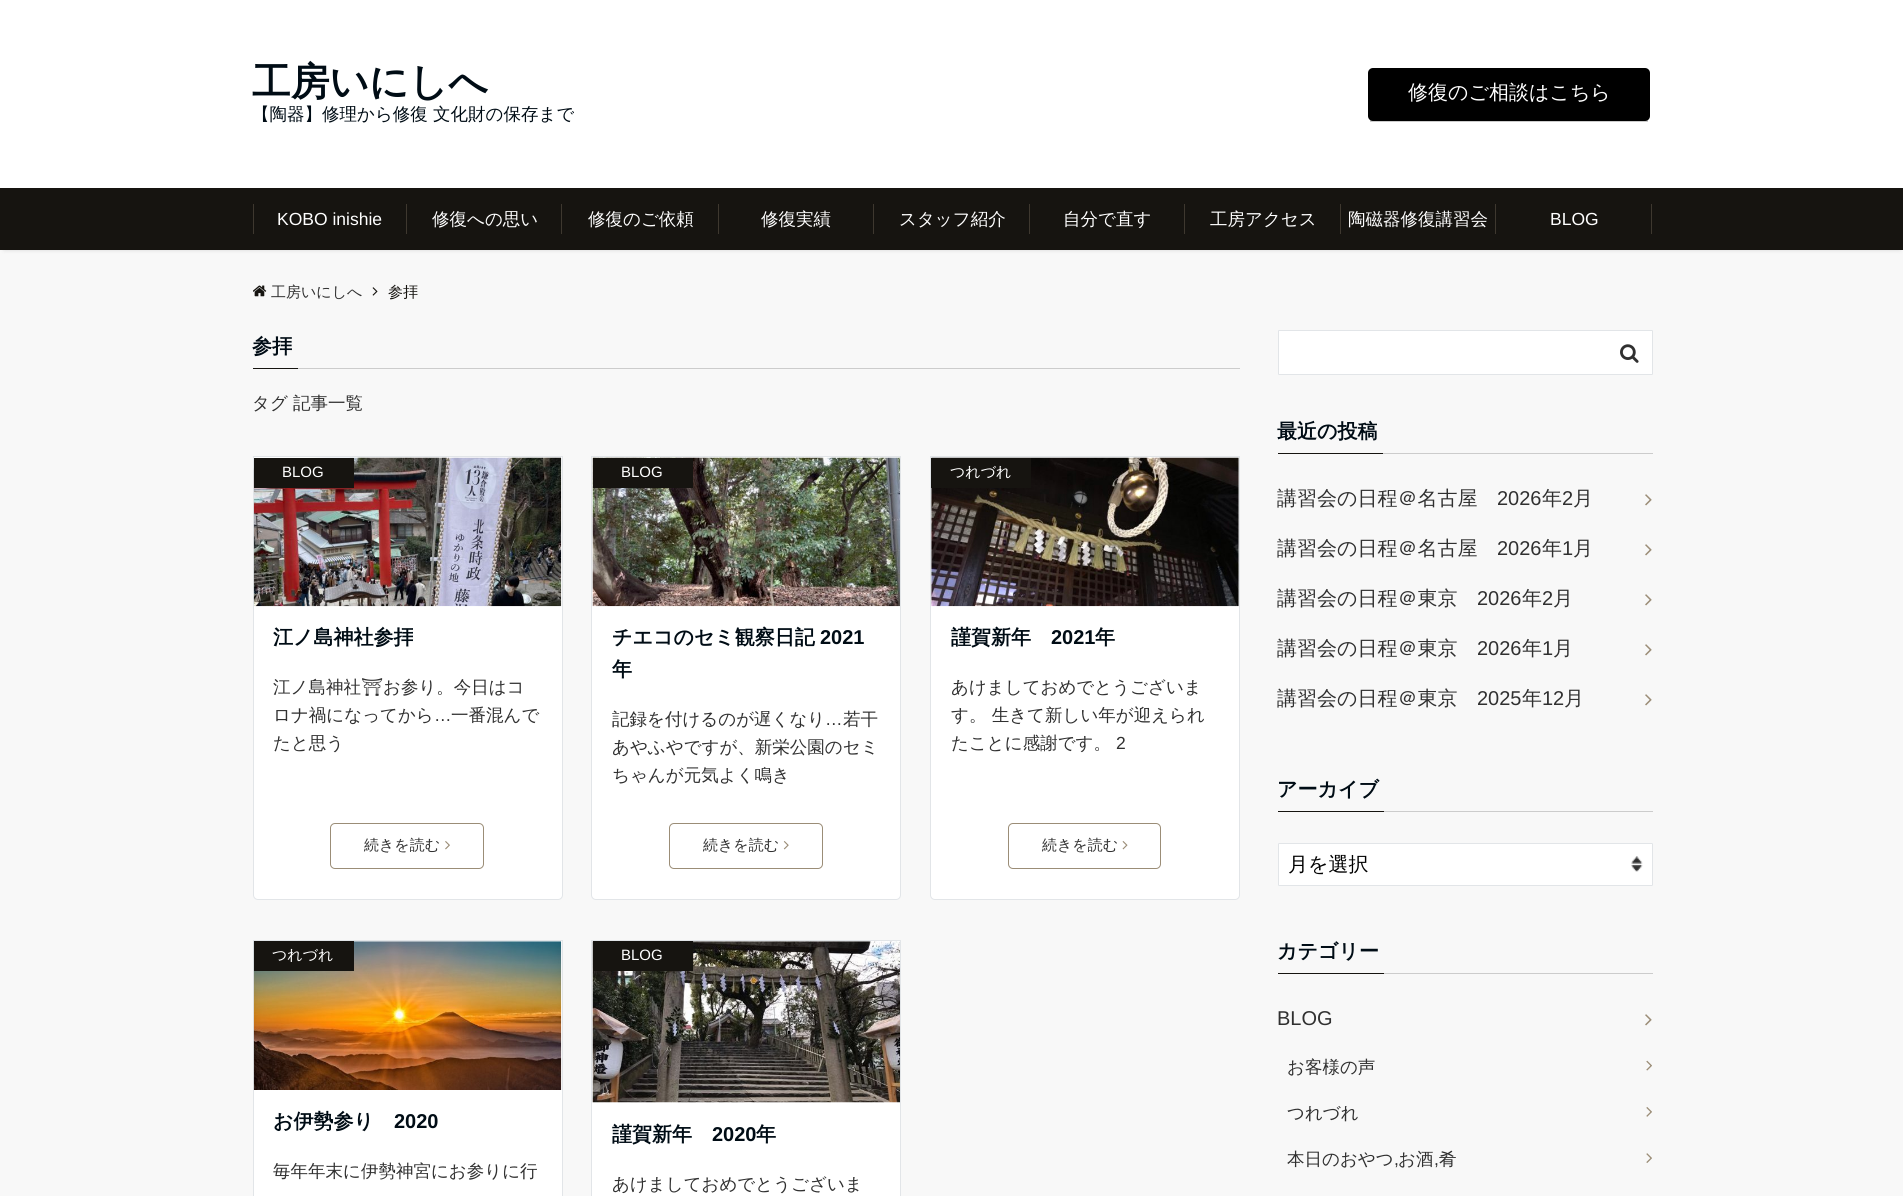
#include <cairo.h>
#include <math.h>
#include <stddef.h>

typedef struct { const char *family; double size; int italic, bold; unsigned color; } style_t;
static cairo_t *ctx;

static void ink(unsigned color) {
    cairo_set_source_rgb(ctx, (color >> 16) / 255.0, (color >> 8 & 255) / 255.0, (color & 255) / 255.0);
}

static void write(double x, double y, const char *s, const style_t *st) {
    cairo_select_font_face(ctx, st->family, st->italic ? CAIRO_FONT_SLANT_ITALIC : CAIRO_FONT_SLANT_NORMAL,
        st->bold ? CAIRO_FONT_WEIGHT_BOLD : CAIRO_FONT_WEIGHT_NORMAL);
    cairo_set_font_size(ctx, st->size);
    ink(st->color);
    cairo_move_to(ctx, x, y);
    cairo_show_text(ctx, s);
}

static void block(double x, double y, double w, double h, unsigned color) {
    ink(color);
    cairo_rectangle(ctx, x, y, w, h);
    cairo_fill(ctx);
}

static void round_path(double x, double y, double w, double h, double r) {
    cairo_new_sub_path(ctx);
    cairo_arc(ctx, x + w - r, y + h - r, r, 0, M_PI / 2);
    cairo_arc(ctx, x + r, y + h - r, r, M_PI / 2, M_PI);
    cairo_arc(ctx, x + r, y + r, r, M_PI, 1.5 * M_PI);
    cairo_arc(ctx, x + w - r, y + r, r, 1.5 * M_PI, 2 * M_PI);
    cairo_close_path(ctx);
}

static void blur_box(double x, double y, double w, double h, double r, double blur, double alpha) {
    cairo_push_group_with_content(ctx, CAIRO_CONTENT_ALPHA);
    cairo_set_operator(ctx, CAIRO_OPERATOR_SOURCE);
    for (int i = 15; i >= -15 && fmin(w, h) + blur * i / 3 > 0; i -= 2) {
        double e = blur * i / 6;
        cairo_set_source_rgba(ctx, 0, 0, 0, alpha * erfc((i - 1) / 8.5) / 2);
        round_path(x - e, y - e, w + 2 * e, h + 2 * e, fmax(0, fmin(r + e + blur * .6, fmin(w, h) / 2 + e)));
        cairo_fill(ctx);
    }
    cairo_pattern_t *soft = cairo_pop_group(ctx);
    cairo_mask(ctx, soft);
    cairo_pattern_destroy(soft);
}

static void paste(const char *path, double x, double y, double w, double h) {
    cairo_surface_t *image = cairo_image_surface_create_from_png(path);
    cairo_save(ctx);
    cairo_set_source_surface(ctx, image, x, y);
    cairo_rectangle(ctx, x, y, w, h);
    cairo_fill(ctx);
    cairo_restore(ctx);
    cairo_surface_destroy(image);
}

static const style_t s1 = {"WenQuanYi Zen Hei", 38.75, 0, 1, 0x000c15};
static const style_t s2 = {"WenQuanYi Zen Hei Medium", 17.5, 0, 0, 0x000c15};
static const style_t s3 = {"WenQuanYi Zen Hei Medium", 20, 0, 0, 0xffffff};
static const style_t s4 = {"Liberation Sans", 17.5, 0, 0, 0xffffff};
static const style_t s5 = {"WenQuanYi Zen Hei Medium", 17.5, 0, 0, 0xffffff};
static const style_t s6 = {"WenQuanYi Zen Hei Medium", 15, 0, 0, 0x303030};
static const style_t s7 = {"WenQuanYi Zen Hei Medium", 15, 0, 0, 0x161410};
static const style_t s8 = {"WenQuanYi Zen Hei", 20, 0, 1, 0x000c15};
static const style_t s9 = {"WenQuanYi Zen Hei Medium", 17.5, 0, 0, 0x303030};
static const style_t s10 = {"Liberation Sans", 15, 0, 0, 0xffffff};
static const style_t s11 = {"Noto Emoji", 17.5, 0, 0, 0x303030};
static const style_t s12 = {"Liberation Sans", 17.5, 0, 0, 0x303030};
static const style_t s13 = {"Liberation Sans", 20, 0, 1, 0x000c15};
static const style_t s14 = {"WenQuanYi Zen Hei Medium", 15, 0, 0, 0xffffff};
static const style_t s15 = {"WenQuanYi Zen Hei Medium", 20, 0, 0, 0x303030};
static const style_t s16 = {"Liberation Sans", 20, 0, 0, 0x303030};
static const style_t s17 = {"WenQuanYi Zen Hei Medium", 20, 0, 0, 0x000000};

int main(void) {
    cairo_surface_t *surface = cairo_image_surface_create(CAIRO_FORMAT_RGB24, 1903, 1196);
    ctx = cairo_create(surface);
    cairo_font_options_t *options = cairo_font_options_create();
    cairo_font_options_set_hint_metrics(options, CAIRO_HINT_METRICS_OFF);
    cairo_font_options_set_hint_style(options, CAIRO_HINT_STYLE_NONE);
    cairo_set_font_options(ctx, options);
    cairo_set_miter_limit(ctx, 4);
    ink(0xf8f8f8);
    cairo_paint(ctx);
    block(0, 0, 1903, 188, 0xffffff);
    write(252, 95, "工房いにしへ", &s1);
    write(252, 120, "【陶器】修理から修復 文化財の保存まで", &s2);
    ink(0x000000);
    round_path(1368, 68, 282, 53, 5);
    cairo_fill(ctx);
    cairo_set_source_rgba(ctx, 0, 0, 0, 0.2);
    cairo_rectangle(ctx, 1370, 120, 278, 2);
    cairo_fill(ctx);
    write(1408, 99, "修復のご相談はこちら", &s3);
    ink(0x000000);
    blur_box(4, 194, 1896, 55, 0, 2.5, 0.2);
    block(0, 188, 1903, 62, 0x161410);
    block(253, 204, 1, 30, 0x3e382f);
    write(277, 225, "KOBO inishie", &s4);
    block(406, 204, 1, 30, 0x3e382f);
    write(432, 225, "修復への思い", &s5);
    block(561, 204, 1, 30, 0x3e382f);
    write(588, 225, "修復のご依頼", &s5);
    block(718, 204, 1, 30, 0x3e382f);
    write(761, 225, "修復実績", &s5);
    block(873, 204, 1, 30, 0x3e382f);
    write(899, 225, "スタッフ紹介", &s5);
    block(1029, 204, 1, 30, 0x3e382f);
    write(1063, 225, "自分で直す", &s5);
    block(1184, 204, 1, 30, 0x3e382f);
    write(1210, 225, "工房アクセス", &s5);
    block(1340, 204, 1, 30, 0x3e382f);
    write(1348, 225, "陶磁器修復講習会", &s5);
    block(1495, 204, 1, 30, 0x3e382f);
    write(1550, 225, "BLOG", &s4);
    block(1651, 204, 1, 30, 0x3e382f);
    paste("pic1.png", 253, 285, 14, 12);
    write(271, 297, "工房いにしへ", &s6);
    paste("pic2.png", 372, 287, 6, 9);
    write(388, 297, "参拝", &s7);
    block(298, 368, 942, 1, 0xcccccc);
    block(253, 368, 45, 1, 0x161410);
    write(252, 353, "参拝", &s8);
    write(252, 409, "タグ 記事一覧", &s9);
    ink(0xffffff);
    cairo_new_path(ctx);
    cairo_move_to(ctx, 253.5, 456.5);
    cairo_line_to(ctx, 562.5, 456.5);
    cairo_line_to(ctx, 562.5, 895);
    cairo_curve_to(ctx, 562.5, 897.5, 560.5, 899.5, 558, 899.5);
    cairo_line_to(ctx, 258, 899.5);
    cairo_curve_to(ctx, 255.5, 899.5, 253.5, 897.5, 253.5, 895);
    cairo_close_path(ctx);
    cairo_fill_preserve(ctx);
    ink(0xe2e5e8);
    cairo_set_line_width(ctx, 1);
    cairo_stroke(ctx);
    paste("pic3.png", 253, 457, 309, 150);
    block(254, 458, 100, 30, 0x161410);
    write(282, 477, "BLOG", &s10);
    write(273, 644, "江ノ島神社参拝", &s8);
    write(273, 693, "江ノ島神社", &s9);
    write(361, 693, "⛩", &s11);
    write(383, 693, "お参り。今日はコ", &s9);
    write(273, 721, "ロナ禍になってから", &s9);
    write(434, 721, "…", &s12);
    write(451, 721, "一番混んで", &s9);
    write(273, 749, "たと思う", &s9);
    round_path(330.5, 823.5, 153, 45, 4.5);
    ink(0x9b8d77);
    cairo_stroke(ctx);
    write(364, 850, "続きを読む", &s6);
    paste("pic4.png", 445, 841, 5, 9);
    ink(0xffffff);
    cairo_new_path(ctx);
    cairo_move_to(ctx, 591.5, 456.5);
    cairo_line_to(ctx, 900.5, 456.5);
    cairo_line_to(ctx, 900.5, 895);
    cairo_curve_to(ctx, 900.5, 897.5, 898.5, 899.5, 896, 899.5);
    cairo_line_to(ctx, 596, 899.5);
    cairo_curve_to(ctx, 593.5, 899.5, 591.5, 897.5, 591.5, 895);
    cairo_close_path(ctx);
    cairo_fill_preserve(ctx);
    ink(0xe2e5e8);
    cairo_stroke(ctx);
    paste("pic5.png", 592, 457, 308, 150);
    block(593, 458, 100, 30, 0x161410);
    write(621, 477, "BLOG", &s10);
    write(612, 644, "チエコのセミ観察日記", &s8);
    write(820, 644, "2021", &s13);
    write(612, 676, "年", &s8);
    write(612, 725, "記録を付けるのが遅くなり", &s9);
    write(825, 725, "…", &s12);
    write(843, 725, "若干", &s9);
    write(612, 753, "あやふやですが、新栄公園のセミ", &s9);
    write(612, 781, "ちゃんが元気よく鳴き", &s9);
    round_path(669.5, 823.5, 153, 45, 4.5);
    ink(0x9b8d77);
    cairo_stroke(ctx);
    write(703, 850, "続きを読む", &s6);
    paste("pic6.png", 783, 841, 6, 9);
    ink(0xffffff);
    cairo_new_path(ctx);
    cairo_move_to(ctx, 930.5, 456.5);
    cairo_line_to(ctx, 1239.5, 456.5);
    cairo_line_to(ctx, 1239.5, 895);
    cairo_curve_to(ctx, 1239.5, 897.5, 1237.5, 899.5, 1235, 899.5);
    cairo_line_to(ctx, 935, 899.5);
    cairo_curve_to(ctx, 932.5, 899.5, 930.5, 897.5, 930.5, 895);
    cairo_close_path(ctx);
    cairo_fill_preserve(ctx);
    ink(0xe2e5e8);
    cairo_stroke(ctx);
    paste("pic7.png", 931, 457, 308, 150);
    block(931, 458, 100, 30, 0x161410);
    write(950, 477, "つれづれ", &s14);
    write(951, 644, "謹賀新年", &s8);
    write(1051, 644, "2021", &s13);
    write(1095, 644, "年", &s8);
    write(951, 693, "あけましておめでとうございま", &s9);
    write(951, 721, "す。 生きて新しい年が迎えられ", &s9);
    write(951, 749, "たことに感謝です。", &s9);
    write(1116, 749, "2", &s12);
    round_path(1008.5, 823.5, 152, 45, 4.5);
    ink(0x9b8d77);
    cairo_stroke(ctx);
    write(1042, 850, "続きを読む", &s6);
    paste("pic8.png", 1122, 841, 6, 9);
    ink(0xffffff);
    cairo_rectangle(ctx, 253.5, 940.5, 309, 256);
    cairo_fill_preserve(ctx);
    ink(0xe2e5e8);
    cairo_stroke(ctx);
    paste("pic9.png", 253, 941, 309, 149);
    block(254, 941, 100, 30, 0x161410);
    write(272, 960, "つれづれ", &s14);
    write(273, 1128, "お伊勢参り", &s8);
    write(394, 1128, "2020", &s13);
    write(273, 1177, "毎年年末に伊勢神宮にお参りに行", &s9);
    ink(0xffffff);
    cairo_rectangle(ctx, 591.5, 940.5, 309, 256);
    cairo_fill_preserve(ctx);
    ink(0xe2e5e8);
    cairo_stroke(ctx);
    paste("pic10.png", 592, 941, 308, 162);
    block(593, 941, 100, 30, 0x161410);
    write(621, 960, "BLOG", &s10);
    write(612, 1141, "謹賀新年", &s8);
    write(712, 1141, "2020", &s13);
    write(756, 1141, "年", &s8);
    write(612, 1190, "あけましておめでとうございま", &s9);
    ink(0xffffff);
    round_path(1278.5, 330.5, 374, 44, 0.5);
    cairo_fill_preserve(ctx);
    ink(0xe2e5e8);
    cairo_stroke(ctx);
    paste("pic11.png", 1620, 344, 19, 19);
    block(1383, 453, 270, 1, 0xcccccc);
    block(1278, 453, 105, 1, 0x161410);
    write(1277, 438, "最近の投稿", &s8);
    write(1277, 505, "講習会の日程＠名古屋", &s15);
    write(1497, 505, "2026", &s16);
    write(1542, 505, "年", &s15);
    write(1562, 505, "2", &s16);
    write(1573, 505, "月", &s15);
    paste("pic12.png", 1645, 494, 7, 12);
    write(1277, 555, "講習会の日程＠名古屋", &s15);
    write(1497, 555, "2026", &s16);
    write(1542, 555, "年", &s15);
    write(1562, 555, "1", &s16);
    write(1573, 555, "月", &s15);
    paste("pic12.png", 1645, 544, 7, 12);
    write(1277, 605, "講習会の日程＠東京", &s15);
    write(1477, 605, "2026", &s16);
    write(1522, 605, "年", &s15);
    write(1542, 605, "2", &s16);
    write(1553, 605, "月", &s15);
    paste("pic12.png", 1645, 594, 7, 12);
    write(1277, 655, "講習会の日程＠東京", &s15);
    write(1477, 655, "2026", &s16);
    write(1522, 655, "年", &s15);
    write(1542, 655, "1", &s16);
    write(1553, 655, "月", &s15);
    paste("pic12.png", 1645, 644, 7, 12);
    write(1277, 705, "講習会の日程＠東京", &s15);
    write(1477, 705, "2025", &s16);
    write(1522, 705, "年", &s15);
    write(1542, 705, "12", &s16);
    write(1564, 705, "月", &s15);
    paste("pic12.png", 1645, 694, 7, 12);
    block(1384, 811, 269, 1, 0xcccccc);
    block(1278, 811, 106, 1, 0x161410);
    write(1277, 796, "アーカイブ", &s8);
    ink(0xffffff);
    round_path(1278, 843, 375, 43, 1);
    cairo_fill(ctx);
    paste("pic13.png", 1631, 856, 12, 16);
    round_path(1278.5, 843.5, 374, 42, 0.5);
    ink(0xe2e5e8);
    cairo_stroke(ctx);
    write(1288, 871, "月を選択", &s17);
    block(1384, 973, 269, 1, 0xcccccc);
    block(1278, 973, 106, 1, 0x161410);
    write(1277, 958, "カテゴリー", &s8);
    write(1277, 1025, "BLOG", &s16);
    paste("pic12.png", 1645, 1014, 7, 12);
    write(1287, 1073, "お客様の声", &s9);
    paste("pic14.png", 1646, 1060, 6, 11);
    write(1287, 1119, "つれづれ", &s9);
    paste("pic15.png", 1646, 1107, 6, 10);
    write(1287, 1165, "本日のおやつ", &s9);
    write(1398, 1165, "お酒", &s9);
    write(1439, 1165, "肴", &s9);
    paste("pic16.png", 1646, 1153, 6, 10);
    write(1394, 1165, ",", &s12);
    write(1434, 1165, ",", &s12);
    cairo_surface_write_to_png(surface, "screenshot.png");
    cairo_font_options_destroy(options);
    cairo_destroy(ctx);
    cairo_surface_destroy(surface);
    return 0;
}
